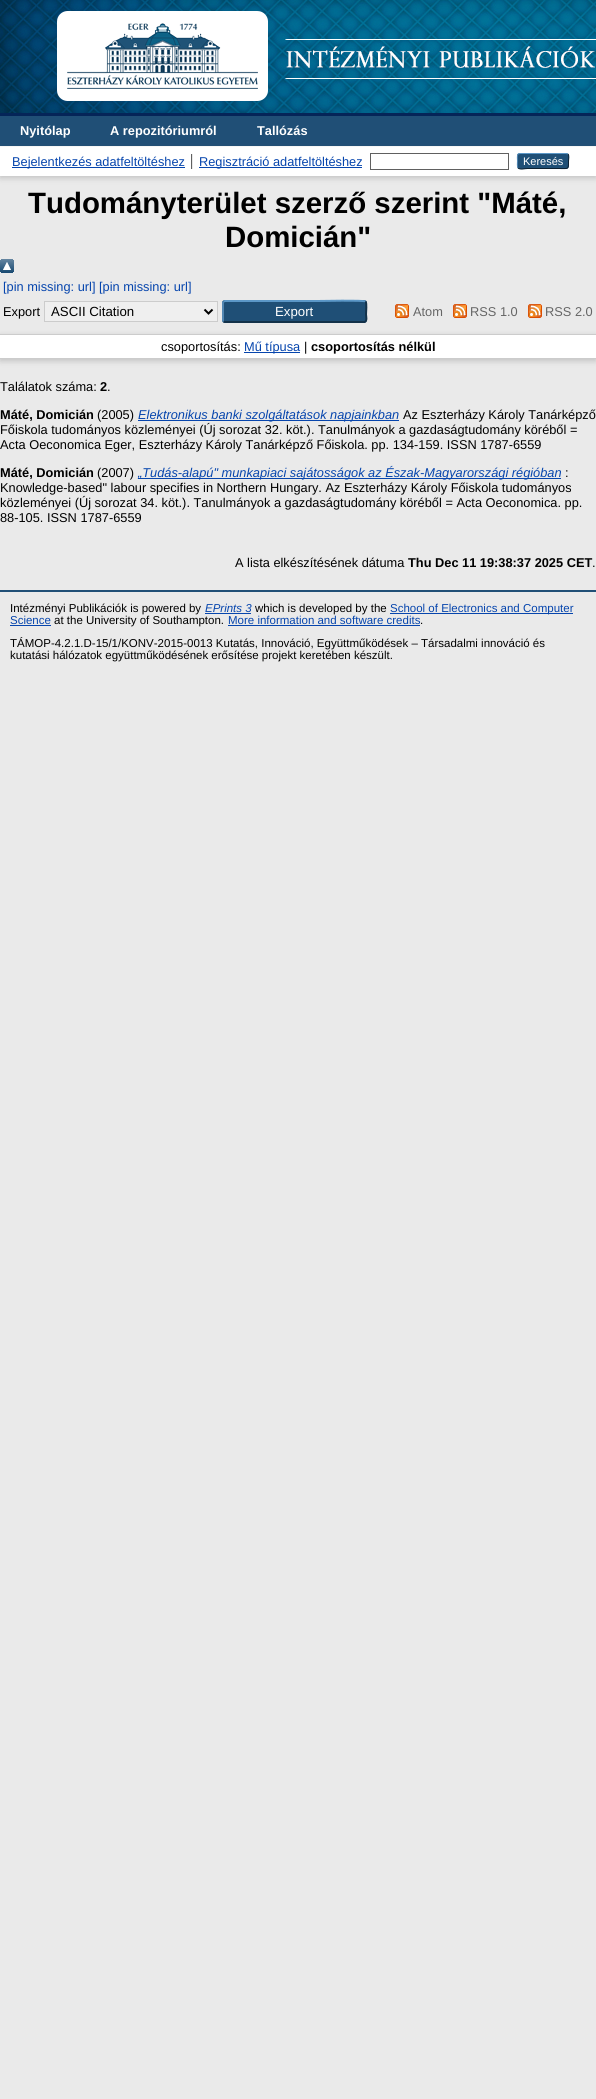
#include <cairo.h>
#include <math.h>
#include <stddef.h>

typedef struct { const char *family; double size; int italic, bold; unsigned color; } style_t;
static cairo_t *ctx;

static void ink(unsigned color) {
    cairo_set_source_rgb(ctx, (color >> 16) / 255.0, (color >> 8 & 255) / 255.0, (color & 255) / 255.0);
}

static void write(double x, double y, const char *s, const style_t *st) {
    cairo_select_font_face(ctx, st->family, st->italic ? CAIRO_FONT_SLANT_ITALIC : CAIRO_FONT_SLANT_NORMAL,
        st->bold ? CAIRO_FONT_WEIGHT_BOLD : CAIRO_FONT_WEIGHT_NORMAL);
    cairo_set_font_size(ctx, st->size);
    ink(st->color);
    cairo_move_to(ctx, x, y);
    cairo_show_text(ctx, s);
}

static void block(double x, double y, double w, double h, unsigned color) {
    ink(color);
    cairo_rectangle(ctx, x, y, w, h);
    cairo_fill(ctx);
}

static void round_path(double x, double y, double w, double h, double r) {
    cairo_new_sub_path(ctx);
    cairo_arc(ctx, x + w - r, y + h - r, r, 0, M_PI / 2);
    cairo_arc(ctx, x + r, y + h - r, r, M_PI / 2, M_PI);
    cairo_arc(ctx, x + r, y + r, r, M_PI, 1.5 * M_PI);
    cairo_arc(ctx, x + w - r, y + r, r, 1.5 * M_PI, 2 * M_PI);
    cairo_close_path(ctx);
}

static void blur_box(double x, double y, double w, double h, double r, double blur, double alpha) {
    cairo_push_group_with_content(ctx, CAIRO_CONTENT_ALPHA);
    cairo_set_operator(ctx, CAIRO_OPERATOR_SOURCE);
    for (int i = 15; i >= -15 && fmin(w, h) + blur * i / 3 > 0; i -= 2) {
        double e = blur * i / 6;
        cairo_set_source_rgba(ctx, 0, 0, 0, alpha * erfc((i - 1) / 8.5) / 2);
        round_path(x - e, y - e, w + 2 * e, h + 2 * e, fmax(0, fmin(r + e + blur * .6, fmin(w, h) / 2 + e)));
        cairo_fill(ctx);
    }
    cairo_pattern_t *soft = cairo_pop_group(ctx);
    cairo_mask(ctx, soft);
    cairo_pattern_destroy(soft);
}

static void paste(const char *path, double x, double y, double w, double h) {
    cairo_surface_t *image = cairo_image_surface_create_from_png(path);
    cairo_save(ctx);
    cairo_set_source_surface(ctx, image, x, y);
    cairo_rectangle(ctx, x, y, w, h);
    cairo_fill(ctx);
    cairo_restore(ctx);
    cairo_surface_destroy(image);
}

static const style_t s1 = {"Liberation Sans", 12.8, 0, 1, 0xffffff};
static const style_t s2 = {"Liberation Sans", 12.8, 0, 0, 0x0645ad};
static const style_t s3 = {"Liberation Sans", 11, 0, 0, 0xffffff};
static const style_t s4 = {"Liberation Sans", 29.4, 0, 1, 0x000000};
static const style_t s5 = {"Liberation Sans", 12.8, 0, 0, 0x000000};
static const style_t s6 = {"Liberation Sans", 13.25, 0, 0, 0x000000};
static const style_t s7 = {"Liberation Sans", 13.25, 0, 0, 0xffffff};
static const style_t s8 = {"Liberation Sans", 12.8, 0, 0, 0x666666};
static const style_t s9 = {"Liberation Sans", 12.8, 0, 1, 0x000000};
static const style_t s10 = {"Liberation Sans", 12.8, 1, 0, 0x0645ad};
static const style_t s11 = {"Liberation Sans", 11.5, 0, 0, 0x000000};
static const style_t s12 = {"Liberation Sans", 11.5, 1, 0, 0x0645ad};
static const style_t s13 = {"Liberation Sans", 11.5, 0, 0, 0x0645ad};

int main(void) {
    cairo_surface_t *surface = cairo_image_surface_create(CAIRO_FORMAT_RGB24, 596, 2099);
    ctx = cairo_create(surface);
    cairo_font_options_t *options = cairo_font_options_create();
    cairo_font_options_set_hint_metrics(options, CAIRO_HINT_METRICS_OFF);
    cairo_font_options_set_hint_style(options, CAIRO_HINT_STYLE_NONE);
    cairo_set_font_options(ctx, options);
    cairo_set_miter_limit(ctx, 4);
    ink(0xeaeaea);
    cairo_paint(ctx);
    block(0, 113, 596, 3, 0x052558);
    paste("pic1.png", 0, 0, 596, 113);
    block(0, 116, 596, 30, 0x204f76);
    block(0, 146, 596, 1, 0xffffff);
    write(20, 135, "Nyitólap", &s1);
    write(110, 135, "A repozitóriumról", &s1);
    write(257, 135, "Tallózás", &s1);
    ink(0x646464);
    blur_box(0, 149, 596, 29, 0, 3, 0.3);
    block(0, 147, 596, 29, 0xffffff);
    block(191, 154, 1, 15, 0x606060);
    block(12, 167, 173, 1, 0x0645ad);
    write(12, 166, "Bejelentkezés adatfeltöltéshez", &s2);
    block(192, 154, 1, 15, 0xe8e8e8);
    block(199, 167, 163, 1, 0x0645ad);
    write(199, 166, "Regisztráció adatfeltöltéshez", &s2);
    cairo_rectangle(ctx, 370.5, 153.5, 138, 16);
    ink(0x606060);
    cairo_set_line_width(ctx, 1);
    cairo_stroke(ctx);
    ink(0x1f4f76);
    round_path(517, 153, 52, 16, 3);
    cairo_fill(ctx);
    cairo_new_path(ctx);
    cairo_move_to(ctx, 518, 154);
    cairo_line_to(ctx, 520, 153.5);
    cairo_line_to(ctx, 566, 153.5);
    cairo_line_to(ctx, 568, 154);
    ink(0x5b97c7);
    cairo_stroke(ctx);
    cairo_new_path(ctx);
    cairo_move_to(ctx, 568, 154);
    cairo_curve_to(ctx, 569.5, 156, 568.5, 159, 568.5, 161);
    cairo_curve_to(ctx, 568.5, 170, 568.5, 168.5, 558.5, 168.5);
    cairo_line_to(ctx, 527.5, 168.5);
    cairo_curve_to(ctx, 524.5, 168.5, 520.5, 170, 518, 168);
    ink(0x0d2131);
    cairo_stroke(ctx);
    cairo_new_path(ctx);
    cairo_move_to(ctx, 518, 168);
    cairo_curve_to(ctx, 517, 166.5, 517.5, 162.5, 517.5, 161);
    cairo_curve_to(ctx, 517.5, 159.5, 517, 155.5, 518, 154);
    ink(0x5287b3);
    cairo_stroke(ctx);
    write(523, 165, "Keresés", &s3);
    write(28, 213, "Tudományterület szerző szerint \"Máté,", &s4);
    write(225, 247, "Domicián\"", &s4);
    paste("pic2.png", 0, 259, 14, 14);
    write(3, 291, "[pin missing: url]", &s2);
    write(99, 291, "[pin missing: url]", &s2);
    write(3, 316, "Export", &s5);
    ink(0xefefef);
    cairo_rectangle(ctx, 44.5, 301.5, 173, 20);
    cairo_fill_preserve(ctx);
    ink(0xcccccc);
    cairo_stroke(ctx);
    cairo_new_path(ctx);
    cairo_move_to(ctx, 204.5, 309.5);
    cairo_line_to(ctx, 208.5, 313.5);
    cairo_line_to(ctx, 212.5, 309.5);
    ink(0x000000);
    cairo_set_line_width(ctx, 2);
    cairo_stroke(ctx);
    write(51, 316, "ASCII Citation", &s6);
    ink(0x1f4f76);
    round_path(222, 300, 145, 23, 3);
    cairo_fill(ctx);
    cairo_new_path(ctx);
    cairo_move_to(ctx, 223.5, 301.5);
    cairo_line_to(ctx, 225, 301);
    cairo_line_to(ctx, 317.5, 301);
    cairo_curve_to(ctx, 320.5, 301, 364, 300, 365.5, 301.5);
    ink(0x5b97c7);
    cairo_stroke(ctx);
    cairo_new_path(ctx);
    cairo_move_to(ctx, 365.5, 301.5);
    cairo_curve_to(ctx, 367, 303, 366, 312, 366, 314.5);
    cairo_curve_to(ctx, 366, 316, 367.5, 321, 364.5, 322);
    cairo_line_to(ctx, 225, 322);
    cairo_line_to(ctx, 223.5, 321.5);
    ink(0x13324a);
    cairo_stroke(ctx);
    cairo_new_path(ctx);
    cairo_move_to(ctx, 223.5, 321.5);
    cairo_curve_to(ctx, 223, 321, 223, 320.5, 223, 320);
    cairo_line_to(ctx, 223, 303);
    cairo_curve_to(ctx, 223, 302.5, 223, 302, 223.5, 301.5);
    ink(0x5287b3);
    cairo_stroke(ctx);
    write(275, 316, "Export", &s7);
    paste("pic3.png", 395, 304, 14, 14);
    write(413, 316, "Atom", &s8);
    paste("pic3.png", 453, 304, 14, 14);
    write(470, 316, "RSS 1.0", &s8);
    paste("pic3.png", 528, 304, 14, 14);
    write(545, 316, "RSS 2.0", &s8);
    ink(0x646464);
    blur_box(0, 336, 596, 25, 0, 3, 0.3);
    block(0, 335, 596, 23, 0xffffff);
    block(0, 334, 596, 1, 0xcccccc);
    block(0, 358, 596, 1, 0xcccccc);
    write(161, 351, "csoportosítás:", &s5);
    block(244, 352, 56, 1, 0x0645ad);
    write(244, 351, "Mű típusa", &s2);
    write(304, 351, "|", &s5);
    write(311, 351, "csoportosítás nélkül", &s9);
    write(0, 391, "Találatok száma:", &s5);
    write(100, 391, "2", &s9);
    write(107, 391, ".", &s5);
    write(0, 419, "Máté, Domicián", &s9);
    write(97, 419, "(2005)", &s5);
    block(138, 420, 261, 1, 0x0645ad);
    write(138, 419, "Elektronikus banki szolgáltatások napjainkban", &s10);
    write(403, 419, "Az Eszterházy Károly Tanárképző", &s5);
    write(0, 434, "Főiskola tudományos közleményei (Új sorozat 32. köt.). Tanulmányok a gazdaságtudomány köréből =", &s5);
    write(0, 449, "Acta Oeconomica Eger, Eszterházy Károly Tanárképző Főiskola. pp. 134-159. ISSN 1787-6559", &s5);
    write(0, 477, "Máté, Domicián", &s9);
    write(97, 477, "(2007)", &s5);
    block(138, 478, 423, 1, 0x0645ad);
    write(138, 477, "„Tudás-alapú\" munkapiaci sajátosságok az Észak-Magyarországi régióban", &s10);
    write(565, 477, ":", &s5);
    write(0, 492, "Knowledge-based\" labour specifies in Northern Hungary. Az Eszterházy Károly Főiskola tudományos", &s5);
    write(0, 507, "közleményei (Új sorozat 34. köt.). Tanulmányok a gazdaságtudomány köréből = Acta Oeconomica. pp.", &s5);
    write(0, 522, "88-105. ISSN 1787-6559", &s5);
    write(235, 567, "A lista elkészítésének dátuma", &s5);
    write(408, 567, "Thu Dec 11 19:38:37 2025 CET", &s9);
    write(592, 567, ".", &s5);
    block(0, 590, 596, 2, 0x204f76);
    write(10, 612, "Intézményi Publikációk is powered by", &s11);
    write(205, 612, "EPrints 3", &s12);
    block(205, 613, 46, 1, 0x0645ad);
    write(255, 612, "which is developed by the", &s11);
    block(390, 613, 183, 1, 0x0645ad);
    write(390, 612, "School of Electronics and Computer", &s13);
    write(10, 624, "Science", &s13);
    block(10, 625, 41, 1, 0x0645ad);
    write(54, 624, "at the University of Southampton.", &s11);
    write(228, 624, "More information and software credits", &s13);
    block(228, 625, 192, 1, 0x0645ad);
    write(420, 624, ".", &s11);
    write(10, 647, "TÁMOP-4.2.1.D-15/1/KONV-2015-0013 Kutatás, Innováció, Együttműködések – Társadalmi innováció és", &s11);
    write(10, 659, "kutatási hálózatok együttműködésének erősítése projekt keretében készült.", &s11);
    cairo_surface_write_to_png(surface, "screenshot.png");
    cairo_font_options_destroy(options);
    cairo_destroy(ctx);
    cairo_surface_destroy(surface);
    return 0;
}
